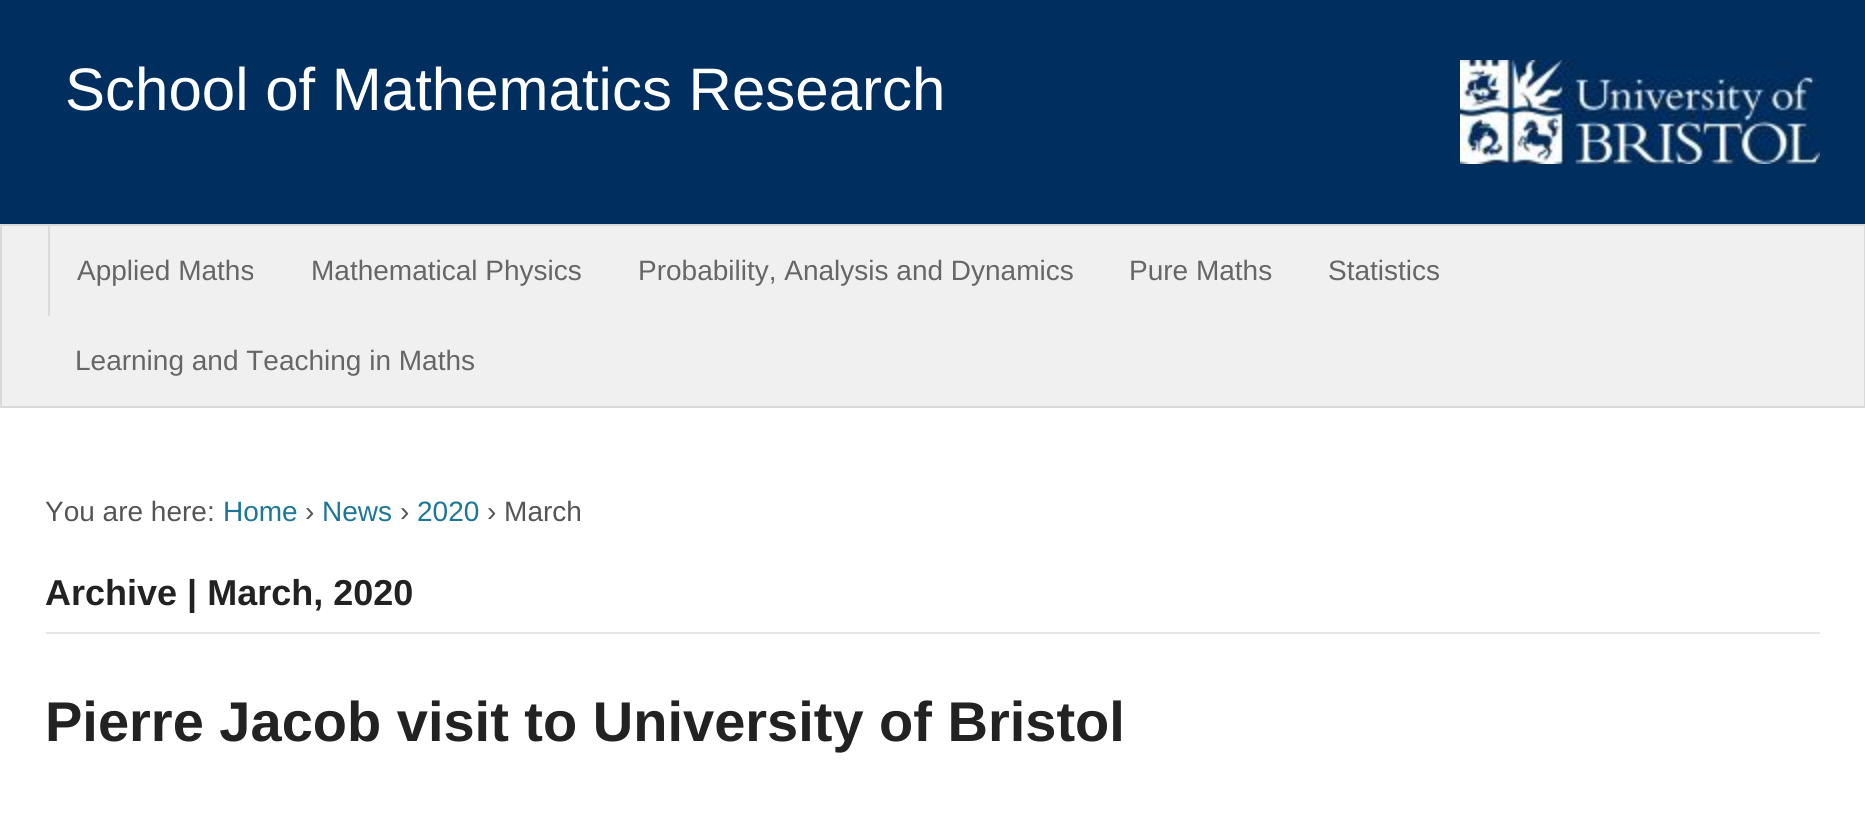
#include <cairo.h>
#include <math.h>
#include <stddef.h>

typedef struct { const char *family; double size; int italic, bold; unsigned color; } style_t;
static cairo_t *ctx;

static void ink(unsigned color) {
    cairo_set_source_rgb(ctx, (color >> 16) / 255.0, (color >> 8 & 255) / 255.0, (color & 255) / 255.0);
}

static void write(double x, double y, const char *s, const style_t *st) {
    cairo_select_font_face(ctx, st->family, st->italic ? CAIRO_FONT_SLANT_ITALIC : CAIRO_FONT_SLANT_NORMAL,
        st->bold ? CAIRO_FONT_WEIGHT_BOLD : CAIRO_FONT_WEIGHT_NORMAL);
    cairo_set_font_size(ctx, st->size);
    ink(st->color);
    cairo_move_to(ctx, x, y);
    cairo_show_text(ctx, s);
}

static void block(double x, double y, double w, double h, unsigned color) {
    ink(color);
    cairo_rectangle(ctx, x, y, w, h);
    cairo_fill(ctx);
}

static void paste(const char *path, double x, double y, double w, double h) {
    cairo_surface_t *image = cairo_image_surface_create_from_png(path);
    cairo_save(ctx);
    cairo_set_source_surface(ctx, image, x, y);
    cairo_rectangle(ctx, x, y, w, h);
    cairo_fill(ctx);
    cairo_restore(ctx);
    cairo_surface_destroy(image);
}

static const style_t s1 = {"Liberation Sans", 60, 0, 0, 0xffffff};
static const style_t s2 = {"Liberation Sans", 28, 0, 0, 0x666666};
static const style_t s3 = {"Liberation Sans", 28, 0, 0, 0x555555};
static const style_t s4 = {"Liberation Sans", 28, 0, 0, 0x1c7698};
static const style_t s5 = {"Liberation Sans", 36, 0, 1, 0x222222};
static const style_t s6 = {"Liberation Sans", 56, 0, 1, 0x222222};

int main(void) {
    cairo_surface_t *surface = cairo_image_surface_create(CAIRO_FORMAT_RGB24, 1865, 822);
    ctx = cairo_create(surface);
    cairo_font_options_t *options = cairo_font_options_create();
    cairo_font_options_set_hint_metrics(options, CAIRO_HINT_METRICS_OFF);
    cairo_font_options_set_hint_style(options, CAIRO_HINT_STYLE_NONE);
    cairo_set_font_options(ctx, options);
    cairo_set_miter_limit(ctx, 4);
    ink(0xffffff);
    cairo_paint(ctx);
    block(0, 0, 1865, 224, 0x002f5f);
    write(65, 110, "School of Mathematics Research", &s1);
    paste("pic1.png", 1460, 60, 360, 104);
    ink(0xf0f0f0);
    cairo_rectangle(ctx, 1, 225, 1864, 182);
    cairo_fill_preserve(ctx);
    ink(0xd9d9d9);
    cairo_stroke(ctx);
    block(48, 226, 2, 90, 0xdbdbdb);
    write(77, 280, "Applied Maths", &s2);
    write(311, 280, "Mathematical Physics", &s2);
    write(638, 280, "Probability, Analysis and Dynamics", &s2);
    write(1129, 280, "Pure Maths", &s2);
    write(1328, 280, "Statistics", &s2);
    write(75, 370, "Learning and Teaching in Maths", &s2);
    write(45, 521, "You are here:", &s3);
    write(223, 521, "Home", &s4);
    write(305, 521, "›", &s3);
    write(322, 521, "News", &s4);
    write(400, 521, "›", &s3);
    write(417, 521, "2020", &s4);
    write(487, 521, "› March", &s3);
    block(46, 632, 1774, 2, 0xe6e6e6);
    write(45, 605, "Archive | March, 2020", &s5);
    write(45, 741, "Pierre Jacob visit to University of Bristol", &s6);
    cairo_surface_write_to_png(surface, "screenshot.png");
    cairo_font_options_destroy(options);
    cairo_destroy(ctx);
    cairo_surface_destroy(surface);
    return 0;
}
